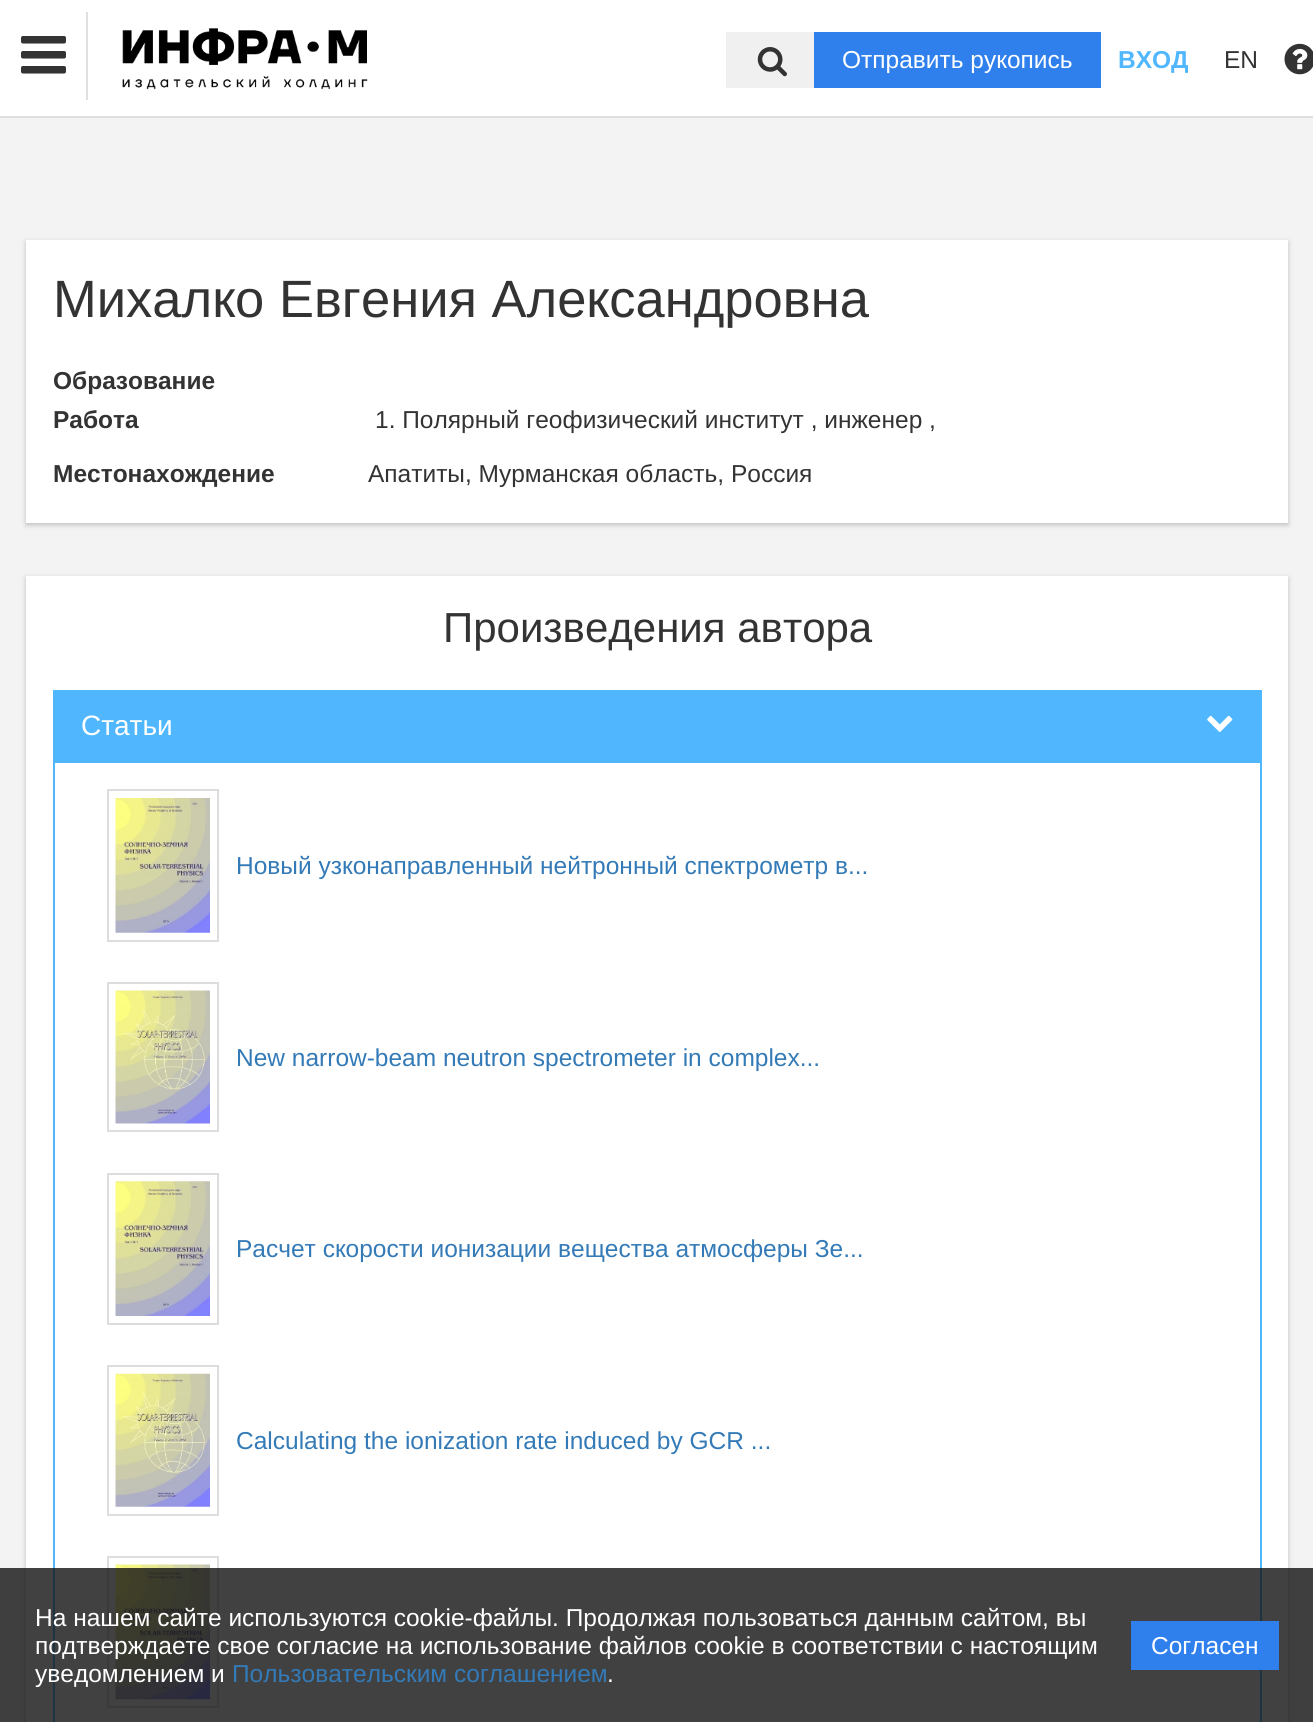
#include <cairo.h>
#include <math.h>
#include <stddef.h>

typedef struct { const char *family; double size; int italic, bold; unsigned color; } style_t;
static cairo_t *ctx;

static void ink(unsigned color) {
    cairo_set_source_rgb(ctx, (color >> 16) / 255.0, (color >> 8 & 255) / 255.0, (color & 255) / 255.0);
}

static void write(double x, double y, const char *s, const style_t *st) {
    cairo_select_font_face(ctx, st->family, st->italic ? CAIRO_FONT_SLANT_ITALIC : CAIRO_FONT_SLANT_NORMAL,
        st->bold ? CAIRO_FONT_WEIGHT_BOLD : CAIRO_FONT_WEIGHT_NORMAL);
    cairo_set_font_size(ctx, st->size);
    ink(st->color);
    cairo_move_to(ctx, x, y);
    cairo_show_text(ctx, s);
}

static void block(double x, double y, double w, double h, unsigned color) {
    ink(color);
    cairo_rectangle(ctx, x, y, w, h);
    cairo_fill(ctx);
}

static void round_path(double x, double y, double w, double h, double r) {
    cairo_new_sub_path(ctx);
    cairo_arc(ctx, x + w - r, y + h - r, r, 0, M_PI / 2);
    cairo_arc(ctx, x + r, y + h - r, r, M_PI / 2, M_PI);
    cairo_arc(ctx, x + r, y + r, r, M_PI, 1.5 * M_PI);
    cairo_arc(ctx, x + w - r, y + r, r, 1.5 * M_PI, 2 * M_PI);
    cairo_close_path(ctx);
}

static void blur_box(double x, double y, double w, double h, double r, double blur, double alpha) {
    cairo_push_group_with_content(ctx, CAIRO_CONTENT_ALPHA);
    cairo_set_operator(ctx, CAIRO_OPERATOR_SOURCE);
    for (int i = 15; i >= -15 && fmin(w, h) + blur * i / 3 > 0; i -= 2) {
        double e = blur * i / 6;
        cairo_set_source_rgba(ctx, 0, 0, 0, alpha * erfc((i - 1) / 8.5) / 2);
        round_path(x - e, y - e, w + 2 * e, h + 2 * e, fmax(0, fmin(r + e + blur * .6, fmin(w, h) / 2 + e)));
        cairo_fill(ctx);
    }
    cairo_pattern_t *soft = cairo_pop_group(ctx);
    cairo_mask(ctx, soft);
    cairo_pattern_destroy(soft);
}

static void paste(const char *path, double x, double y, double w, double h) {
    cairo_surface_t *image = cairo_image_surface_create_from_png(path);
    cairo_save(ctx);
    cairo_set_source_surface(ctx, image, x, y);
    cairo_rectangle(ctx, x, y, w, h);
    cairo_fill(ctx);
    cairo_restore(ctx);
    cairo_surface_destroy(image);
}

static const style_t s1 = {"Liberation Sans", 24.5, 0, 0, 0xffffff};
static const style_t s2 = {"Liberation Sans", 24.5, 0, 1, 0x50b7ff};
static const style_t s3 = {"Liberation Sans", 24.5, 0, 0, 0x333333};
static const style_t s4 = {"Liberation Sans", 52.5, 0, 0, 0x333333};
static const style_t s5 = {"Liberation Sans", 24.5, 0, 1, 0x333333};
static const style_t s6 = {"Liberation Sans", 42, 0, 0, 0x333333};
static const style_t s7 = {"Liberation Sans", 28, 0, 0, 0xffffff};
static const style_t s8 = {"Liberation Sans", 24.5, 0, 0, 0x337ab7};

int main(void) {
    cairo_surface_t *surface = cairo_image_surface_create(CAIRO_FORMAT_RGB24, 1313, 1722);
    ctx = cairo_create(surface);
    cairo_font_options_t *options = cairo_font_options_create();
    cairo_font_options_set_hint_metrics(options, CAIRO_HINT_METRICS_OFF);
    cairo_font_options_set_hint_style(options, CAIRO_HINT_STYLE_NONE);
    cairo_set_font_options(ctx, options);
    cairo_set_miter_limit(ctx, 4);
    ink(0xf4f3f3);
    cairo_paint(ctx);
    block(0, 0, 1313, 116, 0xffffff);
    block(0, 116, 1313, 2, 0xdfdfdf);
    block(86, 12, 2, 88, 0xdfdfdf);
    paste("pic1.png", 21, 36, 45, 38);
    paste("pic2.png", 122, 28, 246, 62);
    block(726, 32, 88, 56, 0xf0f0f0);
    paste("pic3.png", 757, 47, 30, 30);
    block(814, 32, 287, 56, 0x2f80ed);
    write(842, 68, "Отправить рукопись", &s1);
    write(1118, 68, "ВХОД", &s2);
    write(1224, 68, "EN", &s3);
    paste("pic4.png", 1284, 43, 29, 32);
    ink(0xbfbfbf);
    blur_box(26, 242, 1262, 283, 0, 2.5, 1);
    block(26, 240, 1262, 283, 0xffffff);
    write(53, 317, "Михалко Евгения Александровна", &s4);
    write(53, 389, "Образование", &s5);
    write(53, 428, "Работа", &s5);
    write(375, 428, "1. Полярный геофизический институт , инженер ,", &s3);
    write(53, 482, "Местонахождение", &s5);
    write(368, 482, "Апатиты, Мурманская область, Россия", &s3);
    ink(0xbfbfbf);
    blur_box(26, 578, 1262, 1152, 0, 2.5, 1);
    block(26, 576, 1262, 1146, 0xffffff);
    write(443, 642, "Произведения автора", &s6);
    cairo_rectangle(ctx, 54, 691, 1207, 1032);
    ink(0x50b7ff);
    cairo_stroke(ctx);
    block(55, 692, 1205, 69, 0x50b7ff);
    write(81, 735, "Статьи", &s7);
    paste("pic5.png", 1207, 715, 26, 17);
    block(54, 761, 1206, 2, 0x50b7ff);
    cairo_rectangle(ctx, 108, 790, 110, 151);
    ink(0xdddddd);
    cairo_stroke(ctx);
    paste("pic6.png", 115, 798, 95, 135);
    write(236, 874, "Новый узконаправленный нейтронный спектрометр в...", &s8);
    cairo_rectangle(ctx, 108, 983, 110, 148);
    ink(0xdddddd);
    cairo_stroke(ctx);
    paste("pic7.png", 115, 990, 95, 134);
    write(236, 1066, "New narrow-beam neutron spectrometer in complex...", &s8);
    cairo_rectangle(ctx, 108, 1174, 110, 150);
    ink(0xdddddd);
    cairo_stroke(ctx);
    paste("pic8.png", 115, 1181, 95, 135);
    write(236, 1257, "Расчет скорости ионизации вещества атмосферы Зе...", &s8);
    cairo_rectangle(ctx, 108, 1366, 110, 149);
    ink(0xdddddd);
    cairo_stroke(ctx);
    paste("pic9.png", 115, 1373, 95, 134);
    write(236, 1449, "Calculating the ionization rate induced by GCR ...", &s8);
    cairo_rectangle(ctx, 108, 1557, 110, 150);
    ink(0xdddddd);
    cairo_stroke(ctx);
    paste("pic10.png", 115, 1564, 95, 136);
    cairo_set_source_rgba(ctx, 0.071, 0.071, 0.071, 0.8);
    cairo_rectangle(ctx, 0, 1568, 1313, 154);
    cairo_fill(ctx);
    write(35, 1626, "На нашем сайте используются cookie-файлы. Продолжая пользоваться данным сайтом, вы", &s1);
    write(35, 1654, "подтверждаете свое согласие на использование файлов cookie в соответствии с настоящим", &s1);
    write(35, 1682, "уведомлением и", &s1);
    write(232, 1682, "Пользовательским соглашением", &s8);
    write(607, 1682, ".", &s1);
    block(1131, 1621, 148, 49, 0x2f80ed);
    write(1151, 1654, "Согласен", &s1);
    cairo_surface_write_to_png(surface, "screenshot.png");
    cairo_font_options_destroy(options);
    cairo_destroy(ctx);
    cairo_surface_destroy(surface);
    return 0;
}
